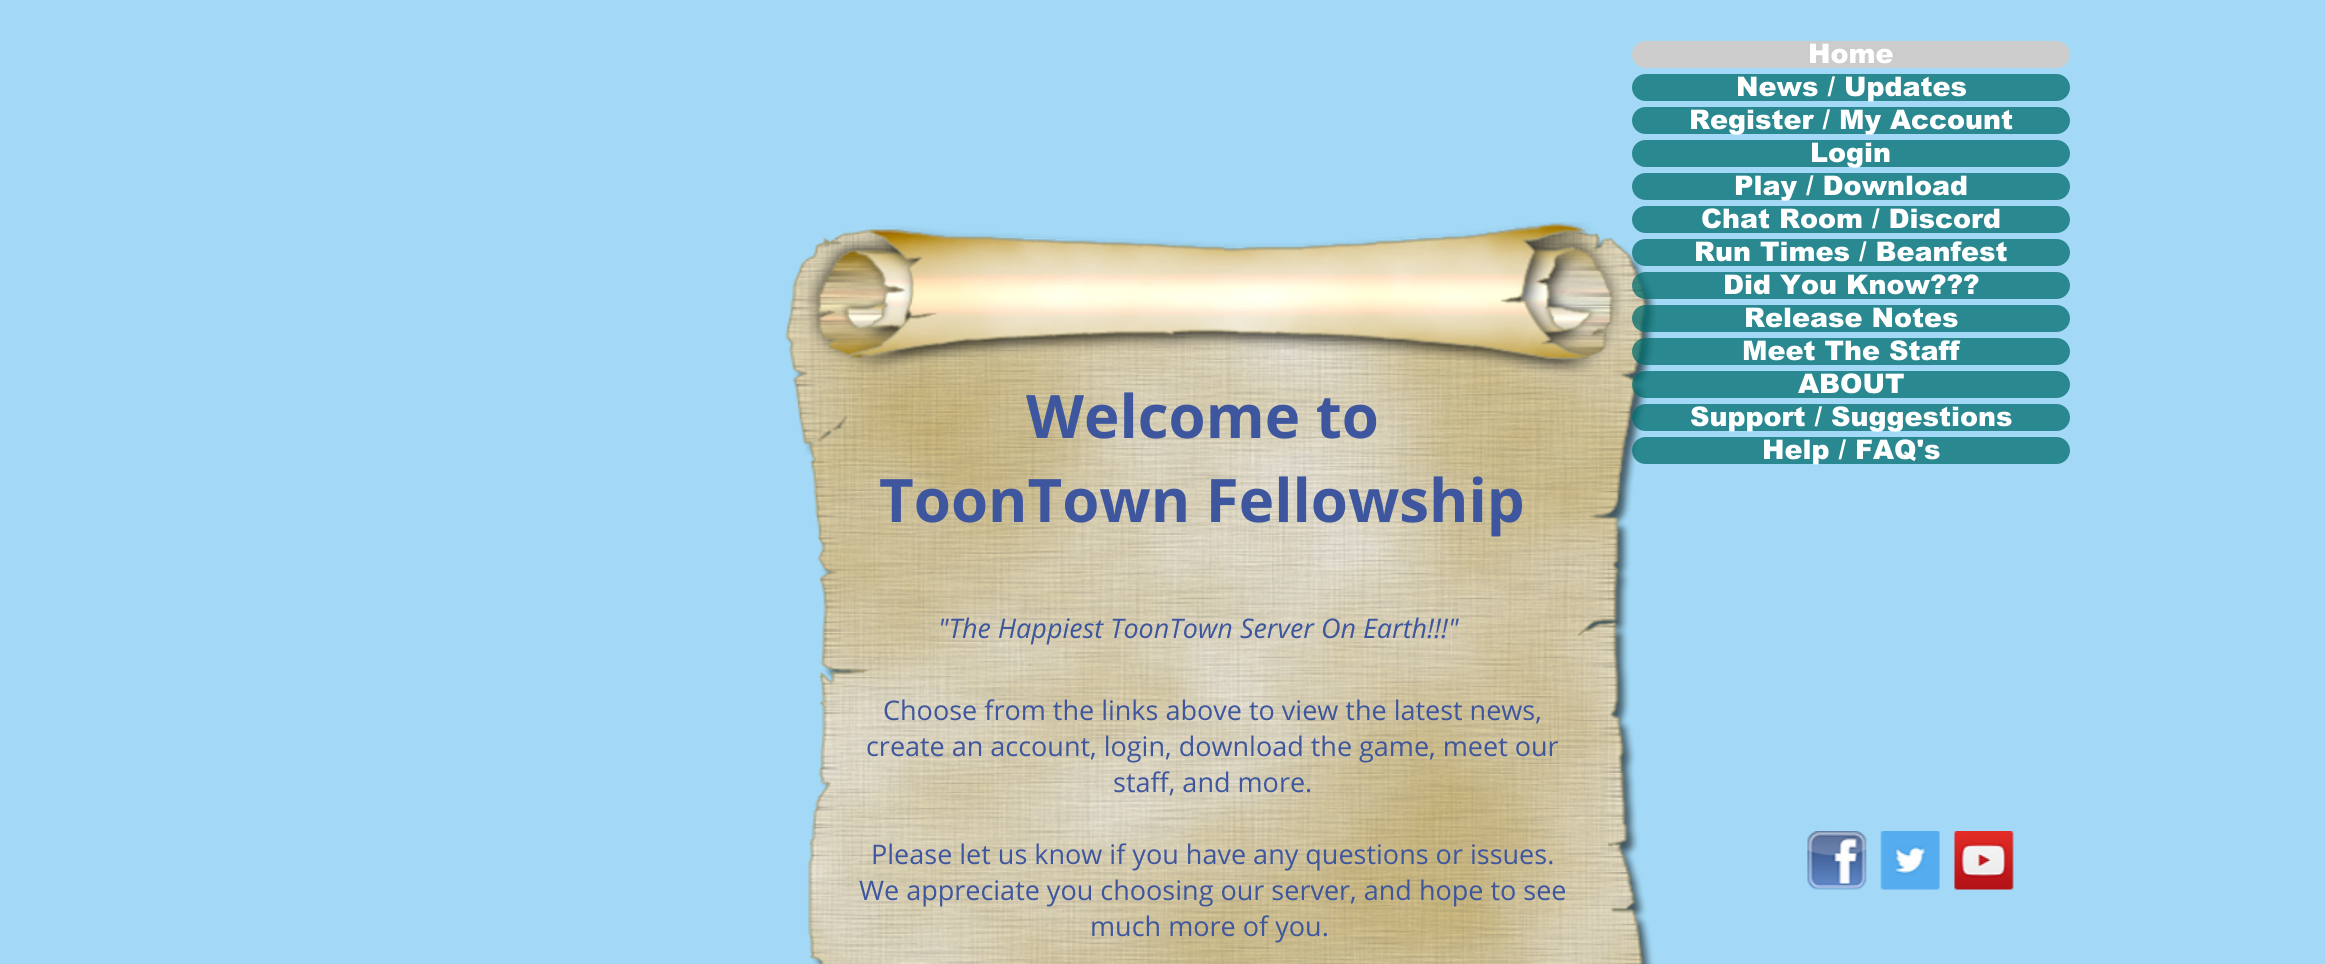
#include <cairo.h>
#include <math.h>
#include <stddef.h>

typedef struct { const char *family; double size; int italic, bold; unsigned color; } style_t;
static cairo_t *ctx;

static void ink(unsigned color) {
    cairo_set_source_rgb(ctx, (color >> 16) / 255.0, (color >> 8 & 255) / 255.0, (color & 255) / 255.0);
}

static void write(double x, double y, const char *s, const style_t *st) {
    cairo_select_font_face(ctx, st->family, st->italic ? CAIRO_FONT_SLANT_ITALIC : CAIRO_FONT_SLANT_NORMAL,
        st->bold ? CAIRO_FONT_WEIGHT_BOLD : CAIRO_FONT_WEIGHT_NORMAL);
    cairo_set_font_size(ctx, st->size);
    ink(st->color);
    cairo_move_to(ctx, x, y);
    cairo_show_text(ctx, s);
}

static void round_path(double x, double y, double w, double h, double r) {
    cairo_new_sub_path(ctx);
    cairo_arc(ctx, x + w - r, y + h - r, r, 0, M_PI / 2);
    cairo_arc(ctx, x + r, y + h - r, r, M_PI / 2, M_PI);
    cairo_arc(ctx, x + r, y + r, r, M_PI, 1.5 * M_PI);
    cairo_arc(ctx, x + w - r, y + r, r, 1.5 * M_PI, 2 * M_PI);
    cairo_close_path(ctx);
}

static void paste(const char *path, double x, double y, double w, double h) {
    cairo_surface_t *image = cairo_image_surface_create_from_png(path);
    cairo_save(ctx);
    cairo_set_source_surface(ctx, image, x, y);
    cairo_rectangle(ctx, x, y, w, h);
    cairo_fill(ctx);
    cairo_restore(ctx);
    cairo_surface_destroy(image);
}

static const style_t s1 = {"arial Black", 27, 0, 0, 0xffffff};
static const style_t s2 = {"Open Sans", 60, 0, 1, 0x3e569e};
static const style_t s3 = {"Open Sans", 27, 1, 0, 0x3e569e};
static const style_t s4 = {"Open Sans", 27, 0, 0, 0x3e569e};

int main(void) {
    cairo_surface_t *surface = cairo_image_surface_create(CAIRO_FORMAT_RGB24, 2325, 964);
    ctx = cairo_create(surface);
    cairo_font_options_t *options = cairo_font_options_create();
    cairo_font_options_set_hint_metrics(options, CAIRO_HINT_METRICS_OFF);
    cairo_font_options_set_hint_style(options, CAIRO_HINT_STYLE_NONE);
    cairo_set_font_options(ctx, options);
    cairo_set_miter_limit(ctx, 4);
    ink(0xa3d9f6);
    cairo_paint(ctx);
    ink(0xcccccc);
    round_path(1632, 41, 438, 27, 13.5);
    cairo_fill(ctx);
    write(1808, 63, "Home", &s1);
    ink(0x2a8891);
    round_path(1632, 74, 438, 27, 13.5);
    cairo_fill(ctx);
    write(1736, 96, "News / Updates", &s1);
    ink(0x2a8891);
    round_path(1632, 107, 438, 27, 13.5);
    cairo_fill(ctx);
    write(1689, 129, "Register / My Account", &s1);
    ink(0x2a8891);
    round_path(1632, 140, 438, 27, 13.5);
    cairo_fill(ctx);
    write(1810, 162, "Login", &s1);
    ink(0x2a8891);
    round_path(1632, 173, 438, 27, 13.5);
    cairo_fill(ctx);
    write(1734, 195, "Play / Download", &s1);
    paste("pic1.png", 784, 222, 872, 742);
    ink(0x2a8891);
    round_path(1632, 206, 438, 27, 13.5);
    cairo_fill(ctx);
    write(1701, 228, "Chat Room / Discord", &s1);
    cairo_set_source_rgba(ctx, 0, 0.424, 0.427, 0.74);
    round_path(1632, 239, 438, 27, 13.5);
    cairo_fill(ctx);
    write(1694, 261, "Run Times / Beanfest", &s1);
    cairo_set_source_rgba(ctx, 0, 0.424, 0.427, 0.74);
    round_path(1632, 272, 438, 27, 13.5);
    cairo_fill(ctx);
    write(1723, 294, "Did You Know?\077?", &s1);
    cairo_set_source_rgba(ctx, 0, 0.424, 0.427, 0.74);
    round_path(1632, 305, 438, 27, 13.5);
    cairo_fill(ctx);
    write(1744, 327, "Release Notes", &s1);
    cairo_set_source_rgba(ctx, 0, 0.424, 0.427, 0.74);
    round_path(1632, 338, 438, 27, 13.5);
    cairo_fill(ctx);
    write(1742, 360, "Meet The Staff", &s1);
    cairo_set_source_rgba(ctx, 0, 0.424, 0.427, 0.74);
    round_path(1632, 371, 438, 27, 13.5);
    cairo_fill(ctx);
    write(1798, 393, "ABOUT", &s1);
    cairo_set_source_rgba(ctx, 0, 0.424, 0.427, 0.74);
    round_path(1632, 404, 438, 27, 13.5);
    cairo_fill(ctx);
    write(1690, 426, "Support / Suggestions", &s1);
    cairo_set_source_rgba(ctx, 0, 0.424, 0.427, 0.74);
    round_path(1632, 437, 438, 27, 13.5);
    cairo_fill(ctx);
    write(1762, 459, "Help / FAQ's", &s1);
    write(1026, 438, "Welcome to", &s2);
    write(879, 522, "ToonTown Fellowship", &s2);
    write(938, 638, "\"The Happiest ToonTown Server On Earth!!!\"", &s3);
    write(883, 720, "Choose from the links above to view the latest news,", &s4);
    write(866, 756, "create an account, login, download the game, meet our", &s4);
    write(1113, 792, "staff, and more.", &s4);
    write(871, 864, "Please let us know if you have any questions or issues.", &s4);
    write(859, 900, "We appreciate you choosing our server, and hope to see", &s4);
    write(1090, 936, "much more of you.", &s4);
    paste("pic2.png", 1807, 831, 60, 59);
    paste("pic3.png", 1880, 831, 60, 59);
    paste("pic4.png", 1954, 831, 60, 59);
    cairo_surface_write_to_png(surface, "screenshot.png");
    cairo_font_options_destroy(options);
    cairo_destroy(ctx);
    cairo_surface_destroy(surface);
    return 0;
}
